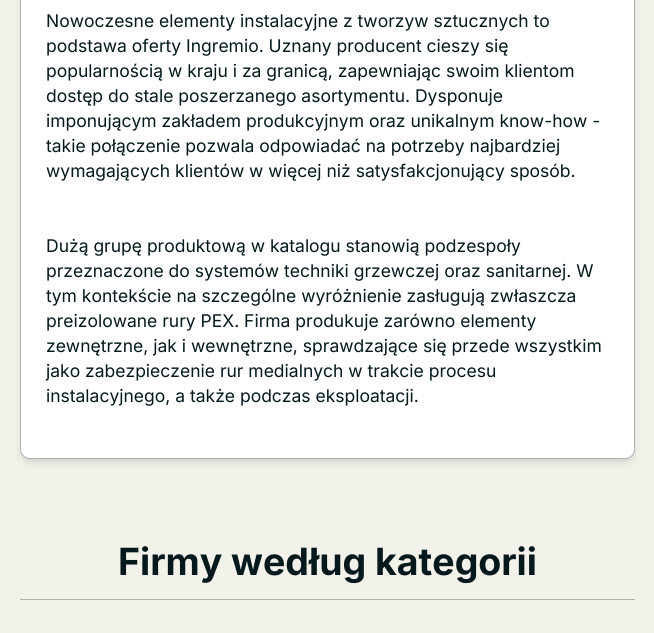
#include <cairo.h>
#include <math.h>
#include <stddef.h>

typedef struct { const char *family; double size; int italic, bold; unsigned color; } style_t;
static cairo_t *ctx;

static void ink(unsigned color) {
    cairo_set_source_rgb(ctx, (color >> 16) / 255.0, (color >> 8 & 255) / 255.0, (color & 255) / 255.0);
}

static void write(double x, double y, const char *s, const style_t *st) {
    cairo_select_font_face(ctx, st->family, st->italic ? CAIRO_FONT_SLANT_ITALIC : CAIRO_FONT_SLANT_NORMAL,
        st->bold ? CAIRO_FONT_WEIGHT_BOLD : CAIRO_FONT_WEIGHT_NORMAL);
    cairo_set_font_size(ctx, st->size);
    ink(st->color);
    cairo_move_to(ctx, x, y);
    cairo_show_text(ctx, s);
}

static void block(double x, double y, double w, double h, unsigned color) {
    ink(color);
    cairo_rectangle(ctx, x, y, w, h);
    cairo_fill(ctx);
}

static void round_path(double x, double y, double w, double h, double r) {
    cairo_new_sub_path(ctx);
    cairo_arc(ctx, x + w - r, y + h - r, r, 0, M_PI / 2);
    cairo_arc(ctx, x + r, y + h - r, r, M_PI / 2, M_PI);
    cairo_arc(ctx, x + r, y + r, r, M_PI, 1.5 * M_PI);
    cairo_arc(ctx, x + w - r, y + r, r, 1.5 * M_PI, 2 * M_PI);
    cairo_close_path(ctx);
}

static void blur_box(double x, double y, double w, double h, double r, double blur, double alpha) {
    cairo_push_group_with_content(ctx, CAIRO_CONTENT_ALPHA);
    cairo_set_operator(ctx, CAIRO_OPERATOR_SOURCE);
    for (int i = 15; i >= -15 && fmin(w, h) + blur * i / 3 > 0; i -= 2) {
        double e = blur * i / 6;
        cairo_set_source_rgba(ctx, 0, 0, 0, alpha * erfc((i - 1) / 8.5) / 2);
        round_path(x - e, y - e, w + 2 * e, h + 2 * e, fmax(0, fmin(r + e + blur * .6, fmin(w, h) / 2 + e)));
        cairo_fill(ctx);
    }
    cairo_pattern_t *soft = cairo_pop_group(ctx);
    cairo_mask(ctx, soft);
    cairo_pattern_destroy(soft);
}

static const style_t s1 = {"Inter", 17.5, 0, 0, 0x05191d};
static const style_t s2 = {"Inter", 37.5, 0, 1, 0x05191d};

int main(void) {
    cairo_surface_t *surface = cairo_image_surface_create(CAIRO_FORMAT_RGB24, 654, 633);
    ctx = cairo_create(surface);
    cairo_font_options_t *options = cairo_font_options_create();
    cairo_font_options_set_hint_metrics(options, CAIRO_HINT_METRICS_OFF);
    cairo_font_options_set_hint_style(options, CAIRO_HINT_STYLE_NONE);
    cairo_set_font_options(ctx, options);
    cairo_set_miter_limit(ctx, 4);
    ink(0xf3f2ea);
    cairo_paint(ctx);
    ink(0x000000);
    blur_box(23, -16, 610, 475, 8, 2.5, 0.1);
    blur_box(21, -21, 613, 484, 9, 4, 0.1);
    ink(0xffffff);
    round_path(20.5, -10.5, 614, 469, 9.5);
    cairo_fill_preserve(ctx);
    ink(0xb2b2b2);
    cairo_set_line_width(ctx, 1);
    cairo_stroke(ctx);
    write(46, 27, "Nowoczesne elementy instalacyjne z tworzyw sztucznych to", &s1);
    write(46, 52, "podstawa oferty Ingremio. Uznany producent cieszy się", &s1);
    write(46, 77, "popularnością w kraju i za granicą, zapewniając swoim klientom", &s1);
    write(46, 102, "dostęp do stale poszerzanego asortymentu. Dysponuje", &s1);
    write(46, 127, "imponującym zakładem produkcyjnym oraz unikalnym know-how -", &s1);
    write(46, 152, "takie połączenie pozwala odpowiadać na potrzeby najbardziej", &s1);
    write(46, 177, "wymagających klientów w więcej niż satysfakcjonujący sposób.", &s1);
    write(46, 252, "Dużą grupę produktową w katalogu stanowią podzespoły", &s1);
    write(46, 277, "przeznaczone do systemów techniki grzewczej oraz sanitarnej. W", &s1);
    write(46, 302, "tym kontekście na szczególne wyróżnienie zasługują zwłaszcza", &s1);
    write(46, 327, "preizolowane rury PEX. Firma produkuje zarówno elementy", &s1);
    write(46, 352, "zewnętrzne, jak i wewnętrzne, sprawdzające się przede wszystkim", &s1);
    write(46, 377, "jako zabezpieczenie rur medialnych w trakcie procesu", &s1);
    write(46, 402, "instalacyjnego, a także podczas eksploatacji.", &s1);
    block(20, 599, 615, 1, 0xb2b2b2);
    write(118, 575, "Firmy według kategorii", &s2);
    cairo_surface_write_to_png(surface, "screenshot.png");
    cairo_font_options_destroy(options);
    cairo_destroy(ctx);
    cairo_surface_destroy(surface);
    return 0;
}
